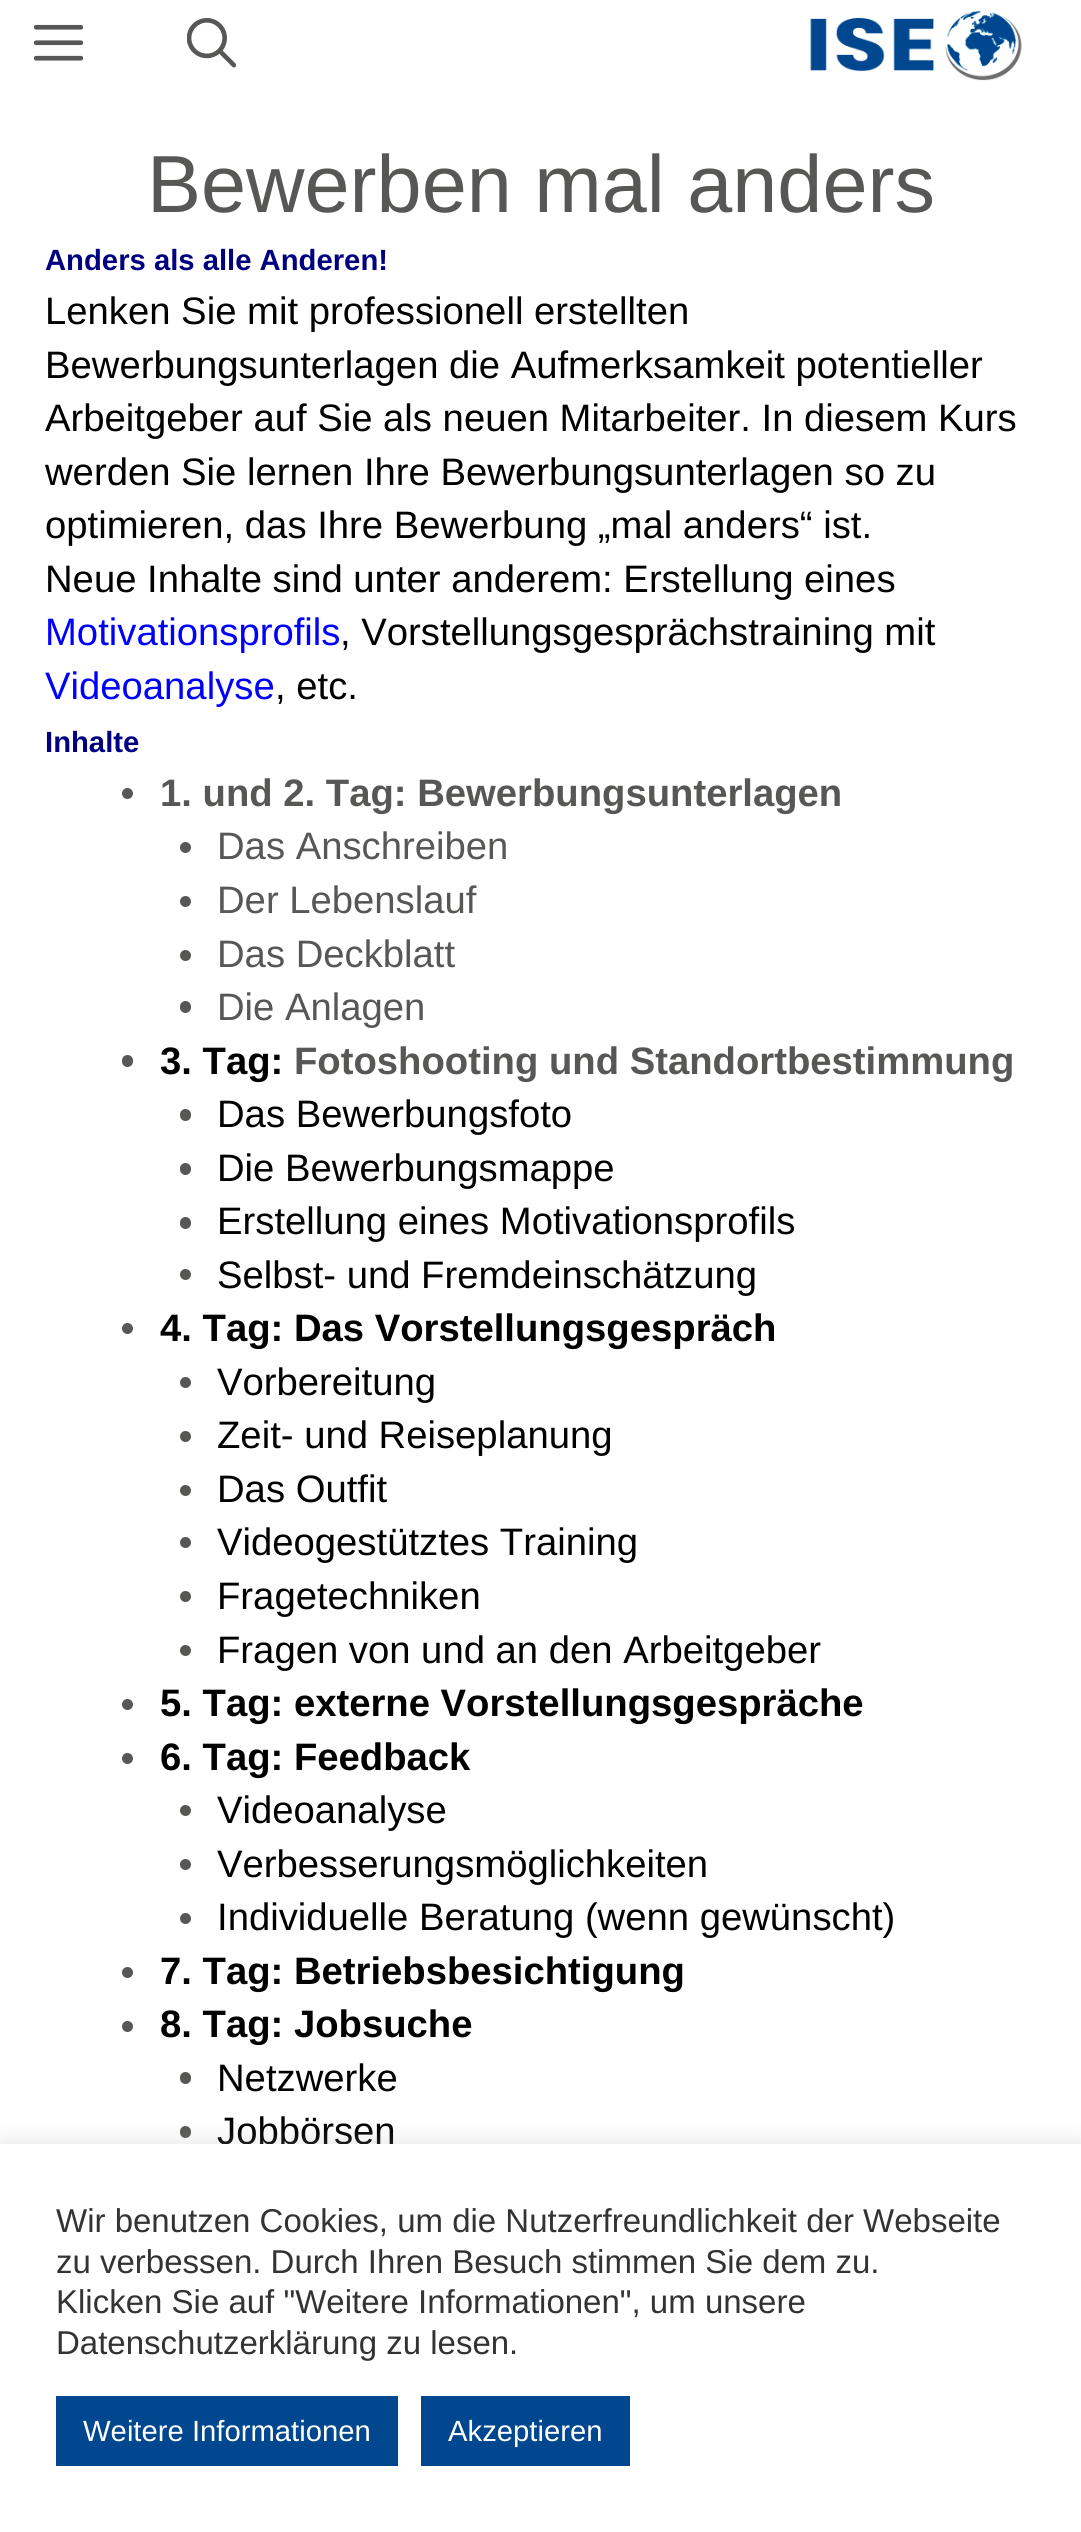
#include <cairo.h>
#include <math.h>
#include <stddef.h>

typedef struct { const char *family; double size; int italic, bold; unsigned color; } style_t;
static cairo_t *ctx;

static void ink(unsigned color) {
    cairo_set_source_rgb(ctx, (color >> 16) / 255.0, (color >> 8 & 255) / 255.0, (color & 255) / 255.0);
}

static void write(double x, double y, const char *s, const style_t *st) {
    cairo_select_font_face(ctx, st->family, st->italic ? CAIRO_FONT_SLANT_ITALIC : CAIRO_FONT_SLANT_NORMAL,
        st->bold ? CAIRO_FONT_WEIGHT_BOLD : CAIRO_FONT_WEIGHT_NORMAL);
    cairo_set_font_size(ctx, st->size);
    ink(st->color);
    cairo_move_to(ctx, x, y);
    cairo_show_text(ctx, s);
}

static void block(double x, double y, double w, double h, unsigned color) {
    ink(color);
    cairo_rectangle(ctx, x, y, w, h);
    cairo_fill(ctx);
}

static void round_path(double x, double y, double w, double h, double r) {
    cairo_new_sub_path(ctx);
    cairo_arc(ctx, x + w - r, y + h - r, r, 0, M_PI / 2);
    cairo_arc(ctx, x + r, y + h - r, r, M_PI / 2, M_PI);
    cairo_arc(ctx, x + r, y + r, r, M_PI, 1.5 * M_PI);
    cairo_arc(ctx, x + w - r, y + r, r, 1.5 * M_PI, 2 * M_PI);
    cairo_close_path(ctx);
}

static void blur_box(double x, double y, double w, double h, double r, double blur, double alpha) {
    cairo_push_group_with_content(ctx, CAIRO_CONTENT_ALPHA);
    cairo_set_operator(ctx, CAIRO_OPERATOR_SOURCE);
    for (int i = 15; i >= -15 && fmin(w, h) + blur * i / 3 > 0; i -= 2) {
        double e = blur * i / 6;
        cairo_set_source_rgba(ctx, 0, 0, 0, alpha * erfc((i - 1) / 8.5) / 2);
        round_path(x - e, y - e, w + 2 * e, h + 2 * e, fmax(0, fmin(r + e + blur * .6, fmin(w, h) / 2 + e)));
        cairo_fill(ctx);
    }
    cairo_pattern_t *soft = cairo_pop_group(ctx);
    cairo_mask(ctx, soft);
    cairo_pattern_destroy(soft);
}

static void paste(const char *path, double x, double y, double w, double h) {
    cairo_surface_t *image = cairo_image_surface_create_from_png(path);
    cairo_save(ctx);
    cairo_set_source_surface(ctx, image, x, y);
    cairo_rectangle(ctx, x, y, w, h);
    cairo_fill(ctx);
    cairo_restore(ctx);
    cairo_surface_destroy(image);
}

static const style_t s1 = {"Liberation Sans", 81, 0, 0, 0x575756};
static const style_t s2 = {"Liberation Sans", 29.25, 0, 1, 0x000080};
static const style_t s3 = {"Liberation Sans", 38.25, 0, 0, 0x000000};
static const style_t s4 = {"Liberation Sans", 38.25, 0, 0, 0x0000ff};
static const style_t s5 = {"Liberation Sans", 38.25, 0, 1, 0x575756};
static const style_t s6 = {"Liberation Sans", 38.25, 0, 0, 0x575756};
static const style_t s7 = {"Liberation Sans", 38.25, 0, 1, 0x000000};
static const style_t s8 = {"Liberation Sans", 33, 0, 0, 0x333333};
static const style_t s9 = {"Liberation Sans", 29.25, 0, 0, 0xffffff};

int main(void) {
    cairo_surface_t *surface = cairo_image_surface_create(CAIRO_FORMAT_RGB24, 1081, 2532);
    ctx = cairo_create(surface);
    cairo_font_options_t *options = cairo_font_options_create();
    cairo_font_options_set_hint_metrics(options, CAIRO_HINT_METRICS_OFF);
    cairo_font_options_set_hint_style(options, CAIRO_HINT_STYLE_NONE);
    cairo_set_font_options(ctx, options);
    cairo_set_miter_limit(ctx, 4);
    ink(0xffffff);
    cairo_paint(ctx);
    paste("pic1.png", 34, 24, 49, 37);
    paste("pic2.png", 187, 18, 49, 50);
    paste("pic3.png", 810, 10, 212, 71);
    write(147, 212, "Bewerben mal anders", &s1);
    write(45, 270, "Anders als alle Anderen!", &s2);
    write(45, 324, "Lenken Sie mit professionell erstellten", &s3);
    write(45, 378, "Bewerbungsunterlagen die Aufmerksamkeit potentieller", &s3);
    write(45, 431, "Arbeitgeber auf Sie als neuen Mitarbeiter. In diesem Kurs", &s3);
    write(45, 485, "werden Sie lernen Ihre Bewerbungsunterlagen so zu", &s3);
    write(45, 538, "optimieren, das Ihre Bewerbung „mal anders“ ist.", &s3);
    write(45, 592, "Neue Inhalte sind unter anderem: Erstellung eines", &s3);
    write(45, 645, "Motivationsprofils", &s4);
    write(340, 645, ", Vorstellungsgesprächstraining mit", &s3);
    write(45, 699, "Videoanalyse", &s4);
    write(275, 699, ", etc.", &s3);
    write(45, 752, "Inhalte", &s2);
    ink(0x575756);
    cairo_new_path(ctx);
    cairo_arc(ctx, 127.5, 793.5, 5.5, 0, 2 * M_PI);
    cairo_fill(ctx);
    write(160, 806, "1. und 2. Tag: Bewerbungsunterlagen", &s5);
    cairo_new_path(ctx);
    cairo_arc(ctx, 185.5, 847.5, 5.5, 0, 2 * M_PI);
    cairo_fill(ctx);
    write(217, 859, "Das Anschreiben", &s6);
    cairo_new_path(ctx);
    cairo_arc(ctx, 185.5, 901.5, 5.5, 0, 2 * M_PI);
    cairo_fill(ctx);
    write(217, 913, "Der Lebenslauf", &s6);
    cairo_new_path(ctx);
    cairo_arc(ctx, 185.5, 955.5, 5.5, 0, 2 * M_PI);
    cairo_fill(ctx);
    write(217, 967, "Das Deckblatt", &s6);
    round_path(180, 1001, 11, 12, 5.5);
    cairo_fill(ctx);
    write(217, 1020, "Die Anlagen", &s6);
    round_path(122, 1055, 11, 12, 5.5);
    cairo_fill(ctx);
    write(160, 1074, "3. Tag:", &s7);
    write(294, 1074, "Fotoshooting und Standortbestimmung", &s5);
    round_path(180, 1109, 11, 12, 5.5);
    cairo_fill(ctx);
    write(217, 1127, "Das Bewerbungsfoto", &s3);
    ink(0x575756);
    round_path(180, 1163, 11, 12, 5.5);
    cairo_fill(ctx);
    write(217, 1181, "Die Bewerbungsmappe", &s3);
    ink(0x575756);
    round_path(180, 1217, 11, 12, 5.5);
    cairo_fill(ctx);
    write(217, 1234, "Erstellung eines Motivationsprofils", &s3);
    ink(0x575756);
    cairo_new_path(ctx);
    cairo_arc(ctx, 185.5, 1274.5, 5.5, 0, 2 * M_PI);
    cairo_fill(ctx);
    write(217, 1288, "Selbst- und Fremdeinschätzung", &s3);
    ink(0x575756);
    cairo_new_path(ctx);
    cairo_arc(ctx, 127.5, 1328.5, 5.5, 0, 2 * M_PI);
    cairo_fill(ctx);
    write(160, 1341, "4. Tag: Das Vorstellungsgespräch", &s7);
    ink(0x575756);
    cairo_new_path(ctx);
    cairo_arc(ctx, 185.5, 1382.5, 5.5, 0, 2 * M_PI);
    cairo_fill(ctx);
    write(217, 1395, "Vorbereitung", &s3);
    ink(0x575756);
    cairo_new_path(ctx);
    cairo_arc(ctx, 185.5, 1436.5, 5.5, 0, 2 * M_PI);
    cairo_fill(ctx);
    write(217, 1448, "Zeit- und Reiseplanung", &s3);
    ink(0x575756);
    cairo_new_path(ctx);
    cairo_arc(ctx, 185.5, 1490.5, 5.5, 0, 2 * M_PI);
    cairo_fill(ctx);
    write(217, 1502, "Das Outfit", &s3);
    ink(0x575756);
    cairo_new_path(ctx);
    cairo_arc(ctx, 185.5, 1542.5, 5.5, 0, 2 * M_PI);
    cairo_fill(ctx);
    write(217, 1555, "Videogestütztes Training", &s3);
    ink(0x575756);
    cairo_new_path(ctx);
    cairo_arc(ctx, 185.5, 1596.5, 5.5, 0, 2 * M_PI);
    cairo_fill(ctx);
    write(217, 1609, "Fragetechniken", &s3);
    ink(0x575756);
    cairo_new_path(ctx);
    cairo_arc(ctx, 185.5, 1650.5, 5.5, 0, 2 * M_PI);
    cairo_fill(ctx);
    write(217, 1663, "Fragen von und an den Arbeitgeber", &s3);
    ink(0x575756);
    cairo_new_path(ctx);
    cairo_arc(ctx, 127.5, 1704.5, 5.5, 0, 2 * M_PI);
    cairo_fill(ctx);
    write(160, 1716, "5. Tag: externe Vorstellungsgespräche", &s7);
    ink(0x575756);
    cairo_new_path(ctx);
    cairo_arc(ctx, 127.5, 1758.5, 5.5, 0, 2 * M_PI);
    cairo_fill(ctx);
    write(160, 1770, "6. Tag: Feedback", &s7);
    ink(0x575756);
    cairo_new_path(ctx);
    cairo_arc(ctx, 185.5, 1810.5, 5.5, 0, 2 * M_PI);
    cairo_fill(ctx);
    write(217, 1823, "Videoanalyse", &s3);
    ink(0x575756);
    cairo_new_path(ctx);
    cairo_arc(ctx, 185.5, 1864.5, 5.5, 0, 2 * M_PI);
    cairo_fill(ctx);
    write(217, 1877, "Verbesserungsmöglichkeiten", &s3);
    ink(0x575756);
    cairo_new_path(ctx);
    cairo_arc(ctx, 185.5, 1918.5, 5.5, 0, 2 * M_PI);
    cairo_fill(ctx);
    write(217, 1930, "Individuelle Beratung (wenn gewünscht)", &s3);
    ink(0x575756);
    cairo_new_path(ctx);
    cairo_arc(ctx, 127.5, 1972.5, 5.5, 0, 2 * M_PI);
    cairo_fill(ctx);
    write(160, 1984, "7. Tag: Betriebsbesichtigung", &s7);
    ink(0x575756);
    cairo_new_path(ctx);
    cairo_arc(ctx, 127.5, 2026.5, 5.5, 0, 2 * M_PI);
    cairo_fill(ctx);
    write(160, 2037, "8. Tag: Jobsuche", &s7);
    ink(0x575756);
    round_path(180, 2072, 11, 12, 5.5);
    cairo_fill(ctx);
    write(217, 2091, "Netzwerke", &s3);
    ink(0x575756);
    round_path(180, 2126, 11, 12, 5.5);
    cairo_fill(ctx);
    write(217, 2144, "Jobbörsen", &s3);
    ink(0xacabab);
    blur_box(0, 2142, 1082, 389, 0, 11, 0.3);
    block(0, 2144, 1081, 388, 0xffffff);
    write(56, 2232, "Wir benutzen Cookies, um die Nutzerfreundlichkeit der Webseite", &s8);
    write(56, 2273, "zu verbessen. Durch Ihren Besuch stimmen Sie dem zu.", &s8);
    write(56, 2313, "Klicken Sie auf \"Weitere Informationen\", um unsere", &s8);
    write(56, 2354, "Datenschutzerklärung zu lesen.", &s8);
    block(56, 2396, 342, 70, 0x004790);
    write(83, 2441, "Weitere Informationen", &s9);
    block(421, 2396, 209, 70, 0x004790);
    write(448, 2441, "Akzeptieren", &s9);
    cairo_surface_write_to_png(surface, "screenshot.png");
    cairo_font_options_destroy(options);
    cairo_destroy(ctx);
    cairo_surface_destroy(surface);
    return 0;
}
